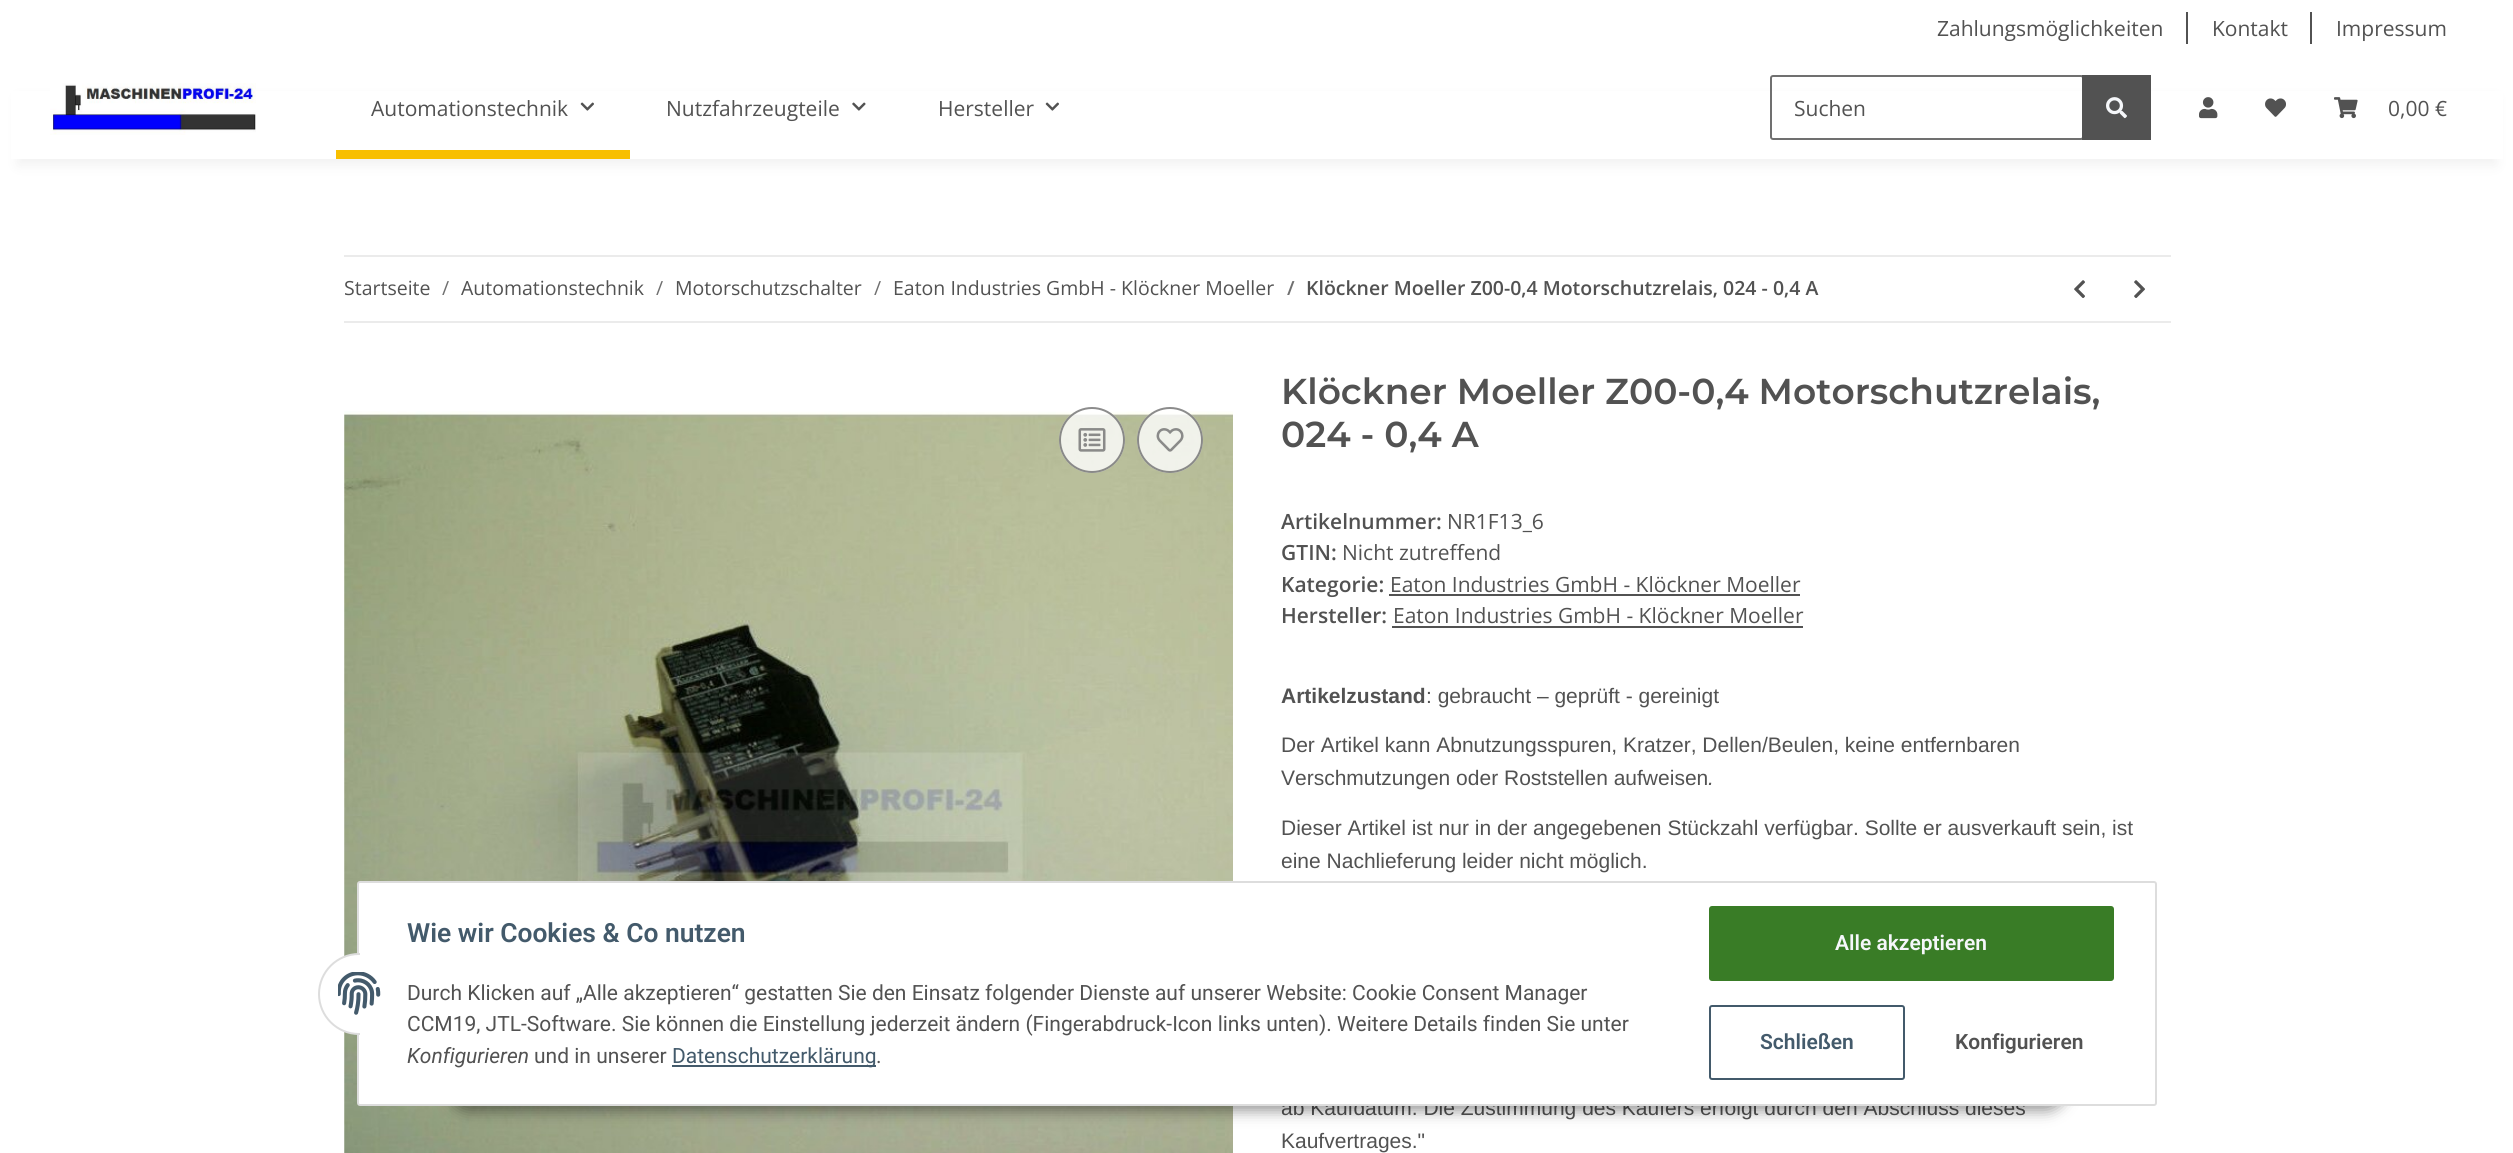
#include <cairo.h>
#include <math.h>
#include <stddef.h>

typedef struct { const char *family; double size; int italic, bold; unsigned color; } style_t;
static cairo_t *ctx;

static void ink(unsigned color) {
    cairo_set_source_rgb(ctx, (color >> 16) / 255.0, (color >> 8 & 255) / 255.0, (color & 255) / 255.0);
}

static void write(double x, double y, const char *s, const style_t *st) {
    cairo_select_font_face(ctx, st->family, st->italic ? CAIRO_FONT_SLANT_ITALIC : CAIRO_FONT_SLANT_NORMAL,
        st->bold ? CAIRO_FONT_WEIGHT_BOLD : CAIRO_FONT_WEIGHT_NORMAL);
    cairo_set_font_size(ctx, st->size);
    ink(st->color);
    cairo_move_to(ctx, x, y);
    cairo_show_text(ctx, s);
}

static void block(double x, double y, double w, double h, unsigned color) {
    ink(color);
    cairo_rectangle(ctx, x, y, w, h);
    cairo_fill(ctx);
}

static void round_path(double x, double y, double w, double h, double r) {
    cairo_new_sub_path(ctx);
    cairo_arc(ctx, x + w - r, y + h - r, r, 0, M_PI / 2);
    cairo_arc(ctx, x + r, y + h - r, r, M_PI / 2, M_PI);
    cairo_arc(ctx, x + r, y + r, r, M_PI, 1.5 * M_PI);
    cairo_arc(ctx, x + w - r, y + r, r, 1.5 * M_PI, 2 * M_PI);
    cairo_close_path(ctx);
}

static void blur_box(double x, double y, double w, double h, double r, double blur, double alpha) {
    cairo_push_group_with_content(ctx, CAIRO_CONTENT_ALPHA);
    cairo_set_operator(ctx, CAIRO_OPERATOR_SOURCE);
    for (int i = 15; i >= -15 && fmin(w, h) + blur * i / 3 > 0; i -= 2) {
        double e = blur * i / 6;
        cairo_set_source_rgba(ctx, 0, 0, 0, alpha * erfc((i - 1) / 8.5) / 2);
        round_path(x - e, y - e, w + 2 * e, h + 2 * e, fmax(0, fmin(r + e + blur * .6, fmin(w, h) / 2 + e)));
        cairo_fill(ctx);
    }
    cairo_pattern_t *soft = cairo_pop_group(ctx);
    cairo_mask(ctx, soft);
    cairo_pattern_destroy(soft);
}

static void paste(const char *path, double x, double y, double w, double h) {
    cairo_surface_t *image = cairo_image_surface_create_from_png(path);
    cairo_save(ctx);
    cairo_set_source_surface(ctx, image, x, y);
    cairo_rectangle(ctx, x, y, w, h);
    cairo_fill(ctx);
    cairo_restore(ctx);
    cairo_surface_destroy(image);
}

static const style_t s1 = {"Open Sans", 21, 0, 0, 0x525252};
static const style_t s2 = {"Open Sans", 19.5, 0, 0, 0x525252};
static const style_t s3 = {"Open Sans", 19.5, 0, 0, 0x707070};
static const style_t s4 = {"Open Sans SemiBold", 19.5, 0, 0, 0x707070};
static const style_t s5 = {"Open Sans SemiBold", 19.5, 0, 0, 0x525252};
static const style_t s6 = {"Montserrat SemiBold", 36, 0, 0, 0x525252};
static const style_t s7 = {"Open Sans SemiBold", 21, 0, 0, 0x525252};
static const style_t s8 = {"Liberation Sans", 21, 0, 1, 0x525252};
static const style_t s9 = {"Liberation Sans", 21, 0, 0, 0x525252};
static const style_t s10 = {"Liberation Sans", 21, 1, 0, 0x525252};
static const style_t s11 = {"Roboto SemiBold", 26.4, 0, 0, 0x435a6b};
static const style_t s12 = {"Roboto", 21, 0, 0, 0x525252};
static const style_t s13 = {"Roboto", 21, 1, 0, 0x525252};
static const style_t s14 = {"Roboto", 21, 0, 0, 0x435a6b};
static const style_t s15 = {"Roboto SemiBold", 21, 0, 0, 0xf5f7fa};
static const style_t s16 = {"Roboto SemiBold", 21, 0, 0, 0x435a6b};
static const style_t s17 = {"Roboto SemiBold", 21, 0, 0, 0x525252};

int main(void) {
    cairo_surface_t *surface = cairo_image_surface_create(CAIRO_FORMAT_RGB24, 2513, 1153);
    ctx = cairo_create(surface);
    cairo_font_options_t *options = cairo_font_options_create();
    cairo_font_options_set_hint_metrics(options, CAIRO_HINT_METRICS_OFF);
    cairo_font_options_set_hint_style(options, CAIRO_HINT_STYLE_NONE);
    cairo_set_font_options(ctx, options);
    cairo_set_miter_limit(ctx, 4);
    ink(0xffffff);
    cairo_paint(ctx);
    write(1937, 36, "Zahlungsmöglichkeiten", &s1);
    block(2186, 12, 2, 32, 0x525252);
    write(2212, 36, "Kontakt", &s1);
    block(2310, 12, 2, 32, 0x525252);
    write(2336, 36, "Impressum", &s1);
    ink(0x000000);
    blur_box(18, 98, 2478, 67, 0, 7, 0.06);
    block(11, 91, 2492, 68, 0xffffff);
    paste("pic1.png", 50, 83, 206, 52);
    write(371, 116, "Automationstechnik", &s1);
    paste("pic2.png", 580, 102, 14, 9);
    block(336, 150, 294, 9, 0xf8bf00);
    write(666, 116, "Nutzfahrzeugteile", &s1);
    paste("pic3.png", 852, 102, 14, 9);
    write(938, 116, "Hersteller", &s1);
    paste("pic2.png", 1045, 102, 14, 9);
    round_path(1771, 76, 312, 63, 2);
    ink(0x707070);
    cairo_stroke(ctx);
    write(1794, 116, "Suchen", &s1);
    block(2082, 75, 69, 65, 0x525252);
    paste("pic4.png", 2106, 97, 21, 22);
    paste("pic5.png", 2199, 97, 19, 22);
    paste("pic6.png", 2265, 98, 21, 19);
    paste("pic7.png", 2334, 97, 24, 22);
    write(2388, 116, "0,00 €", &s1);
    block(344, 255, 1827, 2, 0xebebeb);
    block(344, 321, 1827, 2, 0xebebeb);
    write(344, 295, "Startseite", &s2);
    write(442, 295, "/", &s3);
    write(461, 295, "Automationstechnik", &s2);
    write(656, 295, "/", &s3);
    write(675, 295, "Motorschutzschalter", &s2);
    write(874, 295, "/", &s3);
    write(893, 295, "Eaton Industries GmbH - Klöckner Moeller", &s2);
    write(1287, 295, "/", &s4);
    write(1306, 295, "Klöckner Moeller Z00-0,4 Motorschutzrelais, 024 - 0,4 A", &s5);
    paste("pic8.png", 2074, 280, 11, 18);
    paste("pic9.png", 2134, 280, 11, 18);
    paste("pic12.png", 344, 411, 889, 742);
    cairo_set_source_rgba(ctx, 1, 1, 1, 0.8);
    cairo_arc(ctx, 1092, 440, 33, 0, 2 * M_PI);
    cairo_fill(ctx);
    cairo_arc(ctx, 1092, 440, 32, 0, 2 * M_PI);
    cairo_set_source_rgba(ctx, 0.439, 0.439, 0.439, 0.8);
    cairo_stroke(ctx);
    paste("pic10.png", 1078, 428, 28, 24);
    cairo_set_source_rgba(ctx, 1, 1, 1, 0.8);
    cairo_arc(ctx, 1170, 440, 33, 0, 2 * M_PI);
    cairo_fill(ctx);
    cairo_arc(ctx, 1170, 440, 32, 0, 2 * M_PI);
    cairo_set_source_rgba(ctx, 0.439, 0.439, 0.439, 0.8);
    cairo_stroke(ctx);
    paste("pic11.png", 1156, 428, 28, 24);
    write(1281, 404, "Klöckner Moeller Z00-0,4 Motorschutzrelais,", &s6);
    write(1281, 447, "024 - 0,4 A", &s6);
    write(1281, 529, "Artikelnummer:", &s7);
    write(1447, 529, "NR1F13_6", &s1);
    write(1281, 560, "GTIN:", &s7);
    write(1342, 560, "Nicht zutreffend", &s1);
    write(1281, 592, "Kategorie:", &s7);
    write(1390, 592, "Eaton Industries GmbH - Klöckner Moeller", &s1);
    block(1389, 594, 411, 2, 0x525252);
    write(1281, 623, "Hersteller:", &s7);
    write(1393, 623, "Eaton Industries GmbH - Klöckner Moeller", &s1);
    block(1392, 626, 411, 2, 0x525252);
    write(1281, 703, "Artikelzustand", &s8);
    write(1426, 703, ": gebraucht – geprüft - gereinigt", &s9);
    write(1281, 752, "Der Artikel kann Abnutzungsspuren, Kratzer, Dellen/Beulen, keine entfernbaren", &s9);
    write(1281, 785, "Verschmutzungen oder Roststellen aufweisen", &s9);
    write(1708, 785, ".", &s10);
    write(1281, 835, "Dieser Artikel ist nur in der angegebenen Stückzahl verfügbar. Sollte er ausverkauft sein, ist", &s9);
    write(1281, 868, "eine Nachlieferung leider nicht möglich.", &s9);
    write(1281, 1115, "ab Kaufdatum. Die Zustimmung des Käufers erfolgt durch den Abschluss dieses", &s9);
    write(1281, 1148, "Kaufvertrages.\"", &s9);
    ink(0x000000);
    blur_box(449, 1062, 1617, 48, 24, 7.5, 0.45);
    ink(0xffffff);
    round_path(358, 882, 1798, 223, 2);
    cairo_fill_preserve(ctx);
    ink(0xdddddd);
    cairo_stroke(ctx);
    ink(0xffffff);
    round_path(319, 954, 81, 80, 40);
    cairo_fill_preserve(ctx);
    ink(0xdddddd);
    cairo_stroke(ctx);
    block(360, 953, 41, 82, 0xffffff);
    paste("pic13.png", 338, 972, 43, 43);
    write(407, 942, "Wie wir Cookies & Co nutzen", &s11);
    write(407, 1000, "Durch Klicken auf „Alle akzeptieren“ gestatten Sie den Einsatz folgender Dienste auf unserer Website: Cookie Consent Manager", &s12);
    write(407, 1031, "CCM19, JTL-Software. Sie können die Einstellung jederzeit ändern (Fingerabdruck-Icon links unten). Weitere Details finden Sie unter", &s12);
    write(407, 1063, "Konfigurieren", &s13);
    write(534, 1063, "und in unserer", &s12);
    block(672, 1065, 204, 2, 0x435a6b);
    write(672, 1063, "Datenschutzerklärung", &s14);
    write(876, 1063, ".", &s12);
    ink(0x397c26);
    round_path(1710, 907, 403, 73, 2);
    cairo_fill_preserve(ctx);
    cairo_stroke(ctx);
    write(1835, 950, "Alle akzeptieren", &s15);
    round_path(1710, 1006, 194, 73, 2);
    ink(0x435a6b);
    cairo_stroke(ctx);
    write(1760, 1049, "Schließen", &s16);
    write(1955, 1049, "Konfigurieren", &s17);
    cairo_surface_write_to_png(surface, "screenshot.png");
    cairo_font_options_destroy(options);
    cairo_destroy(ctx);
    cairo_surface_destroy(surface);
    return 0;
}
